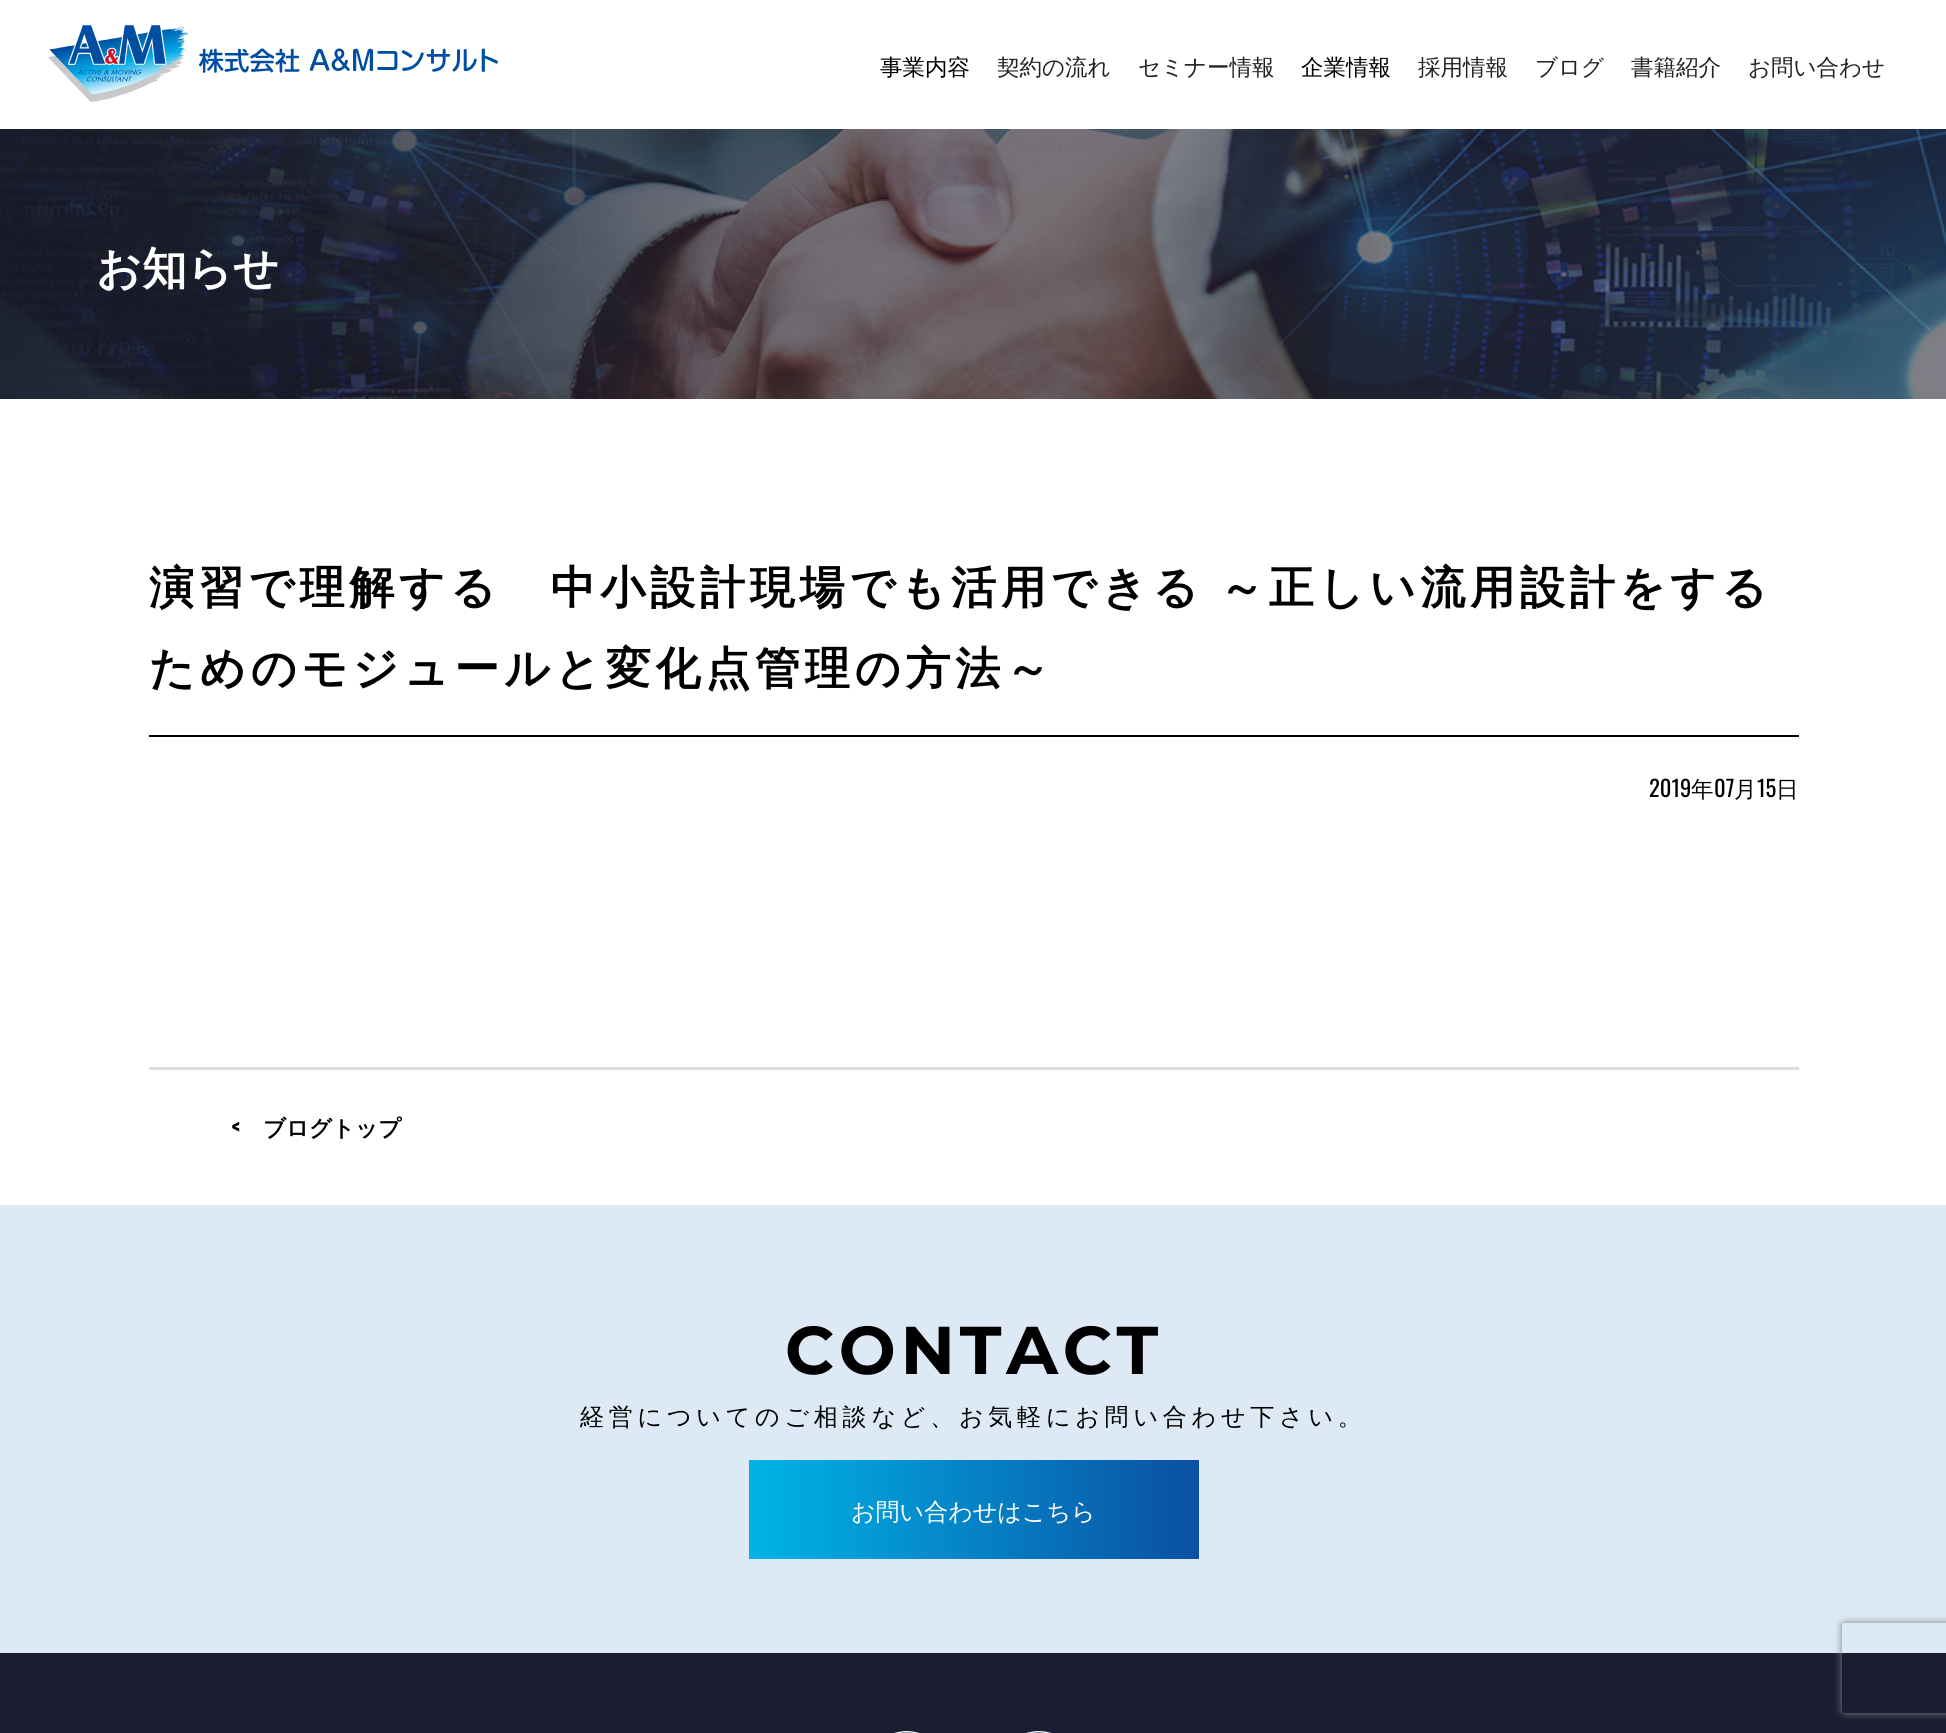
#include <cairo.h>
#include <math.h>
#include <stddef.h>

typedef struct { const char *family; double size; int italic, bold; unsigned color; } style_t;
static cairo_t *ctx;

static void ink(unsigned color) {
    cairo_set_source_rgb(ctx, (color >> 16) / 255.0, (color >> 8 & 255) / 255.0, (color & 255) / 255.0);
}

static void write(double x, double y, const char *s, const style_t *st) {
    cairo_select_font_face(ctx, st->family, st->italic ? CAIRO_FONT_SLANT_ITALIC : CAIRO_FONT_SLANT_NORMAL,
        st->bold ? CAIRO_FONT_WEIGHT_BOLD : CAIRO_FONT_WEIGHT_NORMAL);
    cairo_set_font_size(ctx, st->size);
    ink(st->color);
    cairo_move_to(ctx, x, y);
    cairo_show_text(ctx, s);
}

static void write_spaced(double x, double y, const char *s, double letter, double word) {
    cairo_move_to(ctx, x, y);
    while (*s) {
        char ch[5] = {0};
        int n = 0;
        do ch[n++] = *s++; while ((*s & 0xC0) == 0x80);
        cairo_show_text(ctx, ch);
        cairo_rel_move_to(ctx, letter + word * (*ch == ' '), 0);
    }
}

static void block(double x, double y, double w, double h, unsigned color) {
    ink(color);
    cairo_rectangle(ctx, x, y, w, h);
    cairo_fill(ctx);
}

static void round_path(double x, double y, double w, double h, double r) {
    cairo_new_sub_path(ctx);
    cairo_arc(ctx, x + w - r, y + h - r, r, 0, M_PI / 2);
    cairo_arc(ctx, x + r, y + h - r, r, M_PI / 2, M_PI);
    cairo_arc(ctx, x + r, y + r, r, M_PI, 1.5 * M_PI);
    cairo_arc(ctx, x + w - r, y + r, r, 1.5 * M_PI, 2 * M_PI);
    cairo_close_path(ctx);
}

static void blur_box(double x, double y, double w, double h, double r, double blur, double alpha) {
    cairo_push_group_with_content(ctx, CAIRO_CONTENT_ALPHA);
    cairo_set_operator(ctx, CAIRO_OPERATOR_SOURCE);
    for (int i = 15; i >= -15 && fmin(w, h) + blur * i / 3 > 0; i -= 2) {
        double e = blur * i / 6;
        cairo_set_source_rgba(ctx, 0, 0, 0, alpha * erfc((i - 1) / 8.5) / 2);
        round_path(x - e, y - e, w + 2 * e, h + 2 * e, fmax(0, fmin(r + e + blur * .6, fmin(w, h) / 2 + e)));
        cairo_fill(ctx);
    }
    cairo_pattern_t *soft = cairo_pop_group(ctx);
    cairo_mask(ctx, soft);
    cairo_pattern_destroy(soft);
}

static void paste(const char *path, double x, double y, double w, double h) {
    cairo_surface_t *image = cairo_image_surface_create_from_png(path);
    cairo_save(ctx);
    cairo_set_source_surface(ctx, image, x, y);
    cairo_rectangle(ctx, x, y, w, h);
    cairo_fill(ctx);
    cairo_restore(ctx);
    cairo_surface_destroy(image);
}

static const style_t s1 = {"WenQuanYi Zen Hei Medium", 22.5, 0, 0, 0x000000};
static const style_t s2 = {"WenQuanYi Zen Hei Medium", 22.5, 0, 0, 0x222222};
static const style_t s3 = {"WenQuanYi Zen Hei", 45, 0, 1, 0xffffff};
static const style_t s4 = {"Oswald", 22.5, 0, 0, 0x000000};
static const style_t s5 = {"Oswald", 22.5, 0, 1, 0x000000};
static const style_t s6 = {"WenQuanYi Zen Hei", 22.5, 0, 1, 0x000000};
static const style_t s7 = {"WenQuanYi Zen Hei Medium", 24, 0, 0, 0xffffff};

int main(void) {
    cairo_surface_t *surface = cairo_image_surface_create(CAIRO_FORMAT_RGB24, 1946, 1733);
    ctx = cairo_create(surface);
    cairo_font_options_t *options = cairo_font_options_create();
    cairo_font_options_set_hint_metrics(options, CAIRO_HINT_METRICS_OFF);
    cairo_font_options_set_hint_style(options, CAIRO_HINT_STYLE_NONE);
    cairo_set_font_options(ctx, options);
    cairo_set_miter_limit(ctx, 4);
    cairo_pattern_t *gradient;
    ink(0xffffff);
    cairo_paint(ctx);
    paste("pic1.png", 48, 25, 450, 77);
    write(880, 75, "事業内容", &s1);
    write(997, 75, "契約の流れ", &s2);
    write(1138, 75, "セミナー情報", &s2);
    write(1301, 75, "企業情報", &s1);
    write(1418, 75, "採用情報", &s2);
    write(1535, 75, "ブログ", &s2);
    write(1631, 75, "書籍紹介", &s2);
    write(1748, 75, "お問い合わせ", &s2);
    paste("pic2.png", 0, 129, 1946, 270);
    write(96, 284, "お知らせ", &s3);
    block(149, 735, 1650, 2, 0x000000);
    write_spaced(149, 603, "演習で理解する　中小設計現場でも活用できる", 4.8, 0);
    write_spaced(1219, 603, "～正しい流用設計をする", 4.8, 0);
    write_spaced(149, 684, "ためのモジュールと変化点管理の方法～", 4.8, 0);
    write(1649, 797, "2019", &s4);
    write(1691, 797, "年", &s1);
    write(1714, 797, "07", &s4);
    write(1734, 797, "月", &s1);
    write(1757, 797, "15", &s4);
    write(1776, 797, "日", &s1);
    block(149, 1067, 1650, 3, 0xdddddd);
    write(231, 1136, "<", &s5);
    write(263, 1136, "ブログトップ", &s6);
    block(0, 1205, 1946, 448, 0xdde9f4);
    cairo_select_font_face(ctx, "Montserrat", CAIRO_FONT_SLANT_NORMAL, CAIRO_FONT_WEIGHT_BOLD);
    cairo_set_font_size(ctx, 67.5);
    ink(0x000000);
    write_spaced(785, 1374, "CONTACT", 4.8, 0);
    cairo_select_font_face(ctx, "WenQuanYi Zen Hei Medium", CAIRO_FONT_SLANT_NORMAL, CAIRO_FONT_WEIGHT_NORMAL);
    cairo_set_font_size(ctx, 24);
    write_spaced(580, 1425, "経営についてのご相談など、お気軽にお問い合わせ下さい。", 4.8, 0);
    gradient = cairo_pattern_create_linear(749, 1509, 1199, 1509);
    cairo_pattern_add_color_stop_rgba(gradient, 0, 0, 0.706, 0.91, 1);
    cairo_pattern_add_color_stop_rgba(gradient, 1, 0.043, 0.314, 0.635, 1);
    cairo_set_source(ctx, gradient);
    cairo_pattern_destroy(gradient);
    cairo_rectangle(ctx, 749, 1460, 450, 99);
    cairo_fill(ctx);
    write(851, 1520, "お問い合わせはこちら", &s7);
    block(0, 1653, 1946, 80, 0x1b1d30);
    paste("pic3.png", 894, 1731, 26, 2);
    paste("pic3.png", 1026, 1731, 26, 2);
    cairo_save(ctx);
    cairo_set_fill_rule(ctx, CAIRO_FILL_RULE_EVEN_ODD);
    cairo_new_path(ctx);
    cairo_move_to(ctx, 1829, 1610);
    cairo_line_to(ctx, 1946, 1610);
    cairo_line_to(ctx, 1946, 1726);
    cairo_line_to(ctx, 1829, 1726);
    cairo_close_path(ctx);
    cairo_move_to(ctx, 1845, 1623);
    cairo_line_to(ctx, 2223, 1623);
    cairo_curve_to(ctx, 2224.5, 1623, 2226, 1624.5, 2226, 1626);
    cairo_line_to(ctx, 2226, 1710);
    cairo_curve_to(ctx, 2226, 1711.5, 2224.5, 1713, 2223, 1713);
    cairo_line_to(ctx, 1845, 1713);
    cairo_curve_to(ctx, 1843.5, 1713, 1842, 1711.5, 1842, 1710);
    cairo_line_to(ctx, 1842, 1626);
    cairo_curve_to(ctx, 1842, 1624.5, 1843.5, 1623, 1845, 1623);
    cairo_close_path(ctx);
    cairo_clip(ctx);
    ink(0x808080);
    blur_box(1842, 1623, 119, 90, 3, 4, 1);
    cairo_restore(ctx);
    cairo_surface_write_to_png(surface, "screenshot.png");
    cairo_font_options_destroy(options);
    cairo_destroy(ctx);
    cairo_surface_destroy(surface);
    return 0;
}
